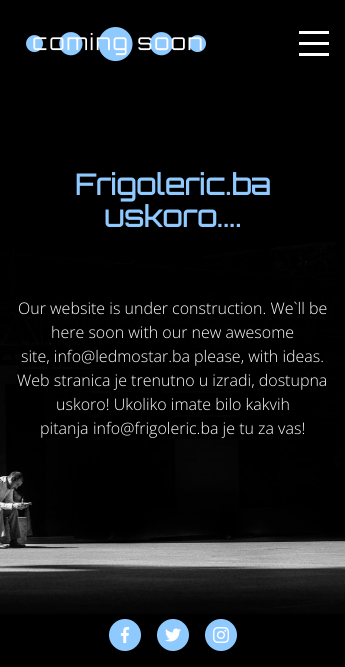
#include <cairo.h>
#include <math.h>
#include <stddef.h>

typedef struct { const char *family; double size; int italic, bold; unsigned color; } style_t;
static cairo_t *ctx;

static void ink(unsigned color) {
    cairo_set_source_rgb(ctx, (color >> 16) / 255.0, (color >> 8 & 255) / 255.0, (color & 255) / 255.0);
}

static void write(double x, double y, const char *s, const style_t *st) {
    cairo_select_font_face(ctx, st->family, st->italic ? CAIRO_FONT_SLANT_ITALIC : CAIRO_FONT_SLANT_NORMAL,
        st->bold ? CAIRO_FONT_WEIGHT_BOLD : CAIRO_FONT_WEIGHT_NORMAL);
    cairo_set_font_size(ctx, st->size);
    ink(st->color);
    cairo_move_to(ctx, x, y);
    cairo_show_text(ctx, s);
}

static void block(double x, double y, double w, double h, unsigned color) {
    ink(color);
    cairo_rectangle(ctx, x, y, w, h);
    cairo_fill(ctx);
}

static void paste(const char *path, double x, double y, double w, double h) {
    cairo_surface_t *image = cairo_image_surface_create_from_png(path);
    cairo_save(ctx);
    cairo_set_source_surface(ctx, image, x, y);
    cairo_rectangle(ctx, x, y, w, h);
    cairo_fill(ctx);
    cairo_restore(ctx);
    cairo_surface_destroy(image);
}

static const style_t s1 = {"Orbitron", 28.75, 0, 1, 0x8ecaff};
static const style_t s2 = {"Open Sans Light", 16, 0, 0, 0xffffff};

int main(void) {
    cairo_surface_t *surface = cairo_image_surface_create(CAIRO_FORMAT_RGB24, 345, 667);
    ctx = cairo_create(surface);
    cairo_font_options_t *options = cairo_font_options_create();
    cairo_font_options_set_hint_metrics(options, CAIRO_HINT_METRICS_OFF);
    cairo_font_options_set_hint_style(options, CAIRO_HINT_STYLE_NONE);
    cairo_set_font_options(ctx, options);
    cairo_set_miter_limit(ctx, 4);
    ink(0x000000);
    cairo_paint(ctx);
    paste("pic1.png", 26, 27, 180, 35);
    block(299, 31, 30, 3, 0xffffff);
    block(299, 42, 30, 3, 0xffffff);
    block(299, 53, 30, 3, 0xffffff);
    write(75, 195, "Frigoleric.ba", &s1);
    write(104, 227, "uskoro....", &s1);
    paste("pic5.png", 0, 242, 345, 372);
    block(23, 308, 144, 11, 0x000000);
    write(18, 314, "Our website is under construction. We`ll be", &s2);
    block(63, 327, 15, 16, 0x000000);
    write(51, 338, "here soon with our new awesome", &s2);
    block(21, 345, 169, 22, 0x000000);
    write(21, 362, "site, info@ledmostar.ba", &s2);
    block(190, 351, 134, 16, 0x000000);
    write(194, 362, "please, with ideas.", &s2);
    block(17, 369, 289, 22, 0x000000);
    write(17, 386, "Web stranica je trenutno u izradi, dostupna", &s2);
    block(92, 393, 147, 22, 0x000000);
    write(56, 410, "uskoro! Ukoliko imate bilo kakvih", &s2);
    block(50, 417, 43, 21, 0x000000);
    write(40, 434, "pitanja", &s2);
    block(93, 417, 145, 22, 0x000000);
    write(93, 434, "info@frigoleric.ba je tu za vas!", &s2);
    ink(0x8ecaff);
    cairo_new_path(ctx);
    cairo_arc(ctx, 125, 635, 16, 0, 2 * M_PI);
    cairo_fill(ctx);
    paste("pic2.png", 120, 627, 10, 16);
    cairo_arc(ctx, 173, 635, 16, 0, 2 * M_PI);
    cairo_fill(ctx);
    paste("pic3.png", 165, 628, 16, 14);
    cairo_arc(ctx, 221, 635, 16, 0, 2 * M_PI);
    cairo_fill(ctx);
    paste("pic4.png", 213, 627, 16, 16);
    cairo_surface_write_to_png(surface, "screenshot.png");
    cairo_font_options_destroy(options);
    cairo_destroy(ctx);
    cairo_surface_destroy(surface);
    return 0;
}
